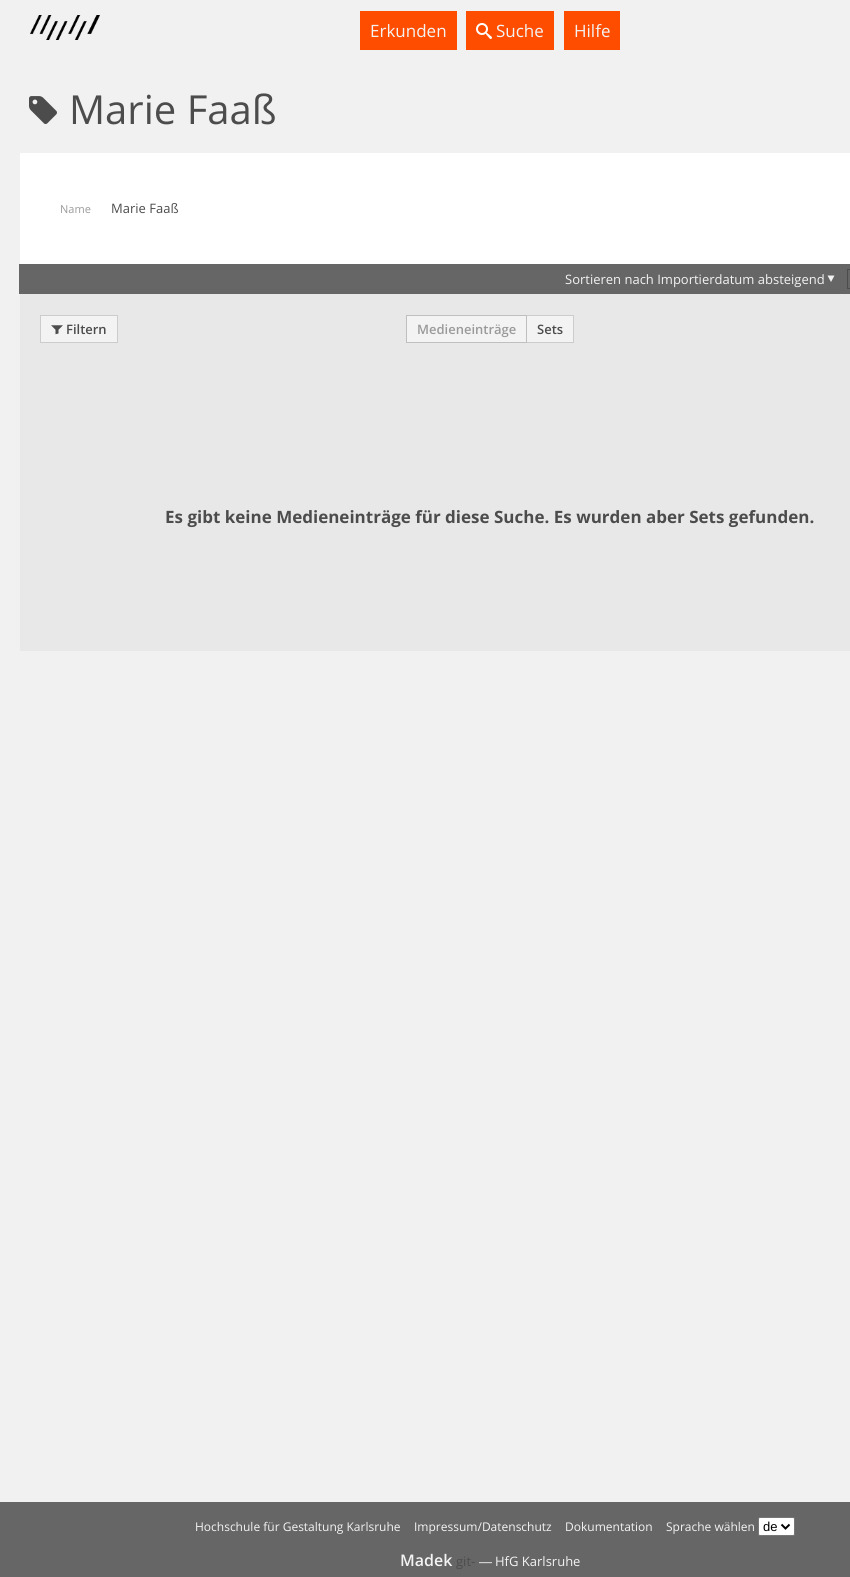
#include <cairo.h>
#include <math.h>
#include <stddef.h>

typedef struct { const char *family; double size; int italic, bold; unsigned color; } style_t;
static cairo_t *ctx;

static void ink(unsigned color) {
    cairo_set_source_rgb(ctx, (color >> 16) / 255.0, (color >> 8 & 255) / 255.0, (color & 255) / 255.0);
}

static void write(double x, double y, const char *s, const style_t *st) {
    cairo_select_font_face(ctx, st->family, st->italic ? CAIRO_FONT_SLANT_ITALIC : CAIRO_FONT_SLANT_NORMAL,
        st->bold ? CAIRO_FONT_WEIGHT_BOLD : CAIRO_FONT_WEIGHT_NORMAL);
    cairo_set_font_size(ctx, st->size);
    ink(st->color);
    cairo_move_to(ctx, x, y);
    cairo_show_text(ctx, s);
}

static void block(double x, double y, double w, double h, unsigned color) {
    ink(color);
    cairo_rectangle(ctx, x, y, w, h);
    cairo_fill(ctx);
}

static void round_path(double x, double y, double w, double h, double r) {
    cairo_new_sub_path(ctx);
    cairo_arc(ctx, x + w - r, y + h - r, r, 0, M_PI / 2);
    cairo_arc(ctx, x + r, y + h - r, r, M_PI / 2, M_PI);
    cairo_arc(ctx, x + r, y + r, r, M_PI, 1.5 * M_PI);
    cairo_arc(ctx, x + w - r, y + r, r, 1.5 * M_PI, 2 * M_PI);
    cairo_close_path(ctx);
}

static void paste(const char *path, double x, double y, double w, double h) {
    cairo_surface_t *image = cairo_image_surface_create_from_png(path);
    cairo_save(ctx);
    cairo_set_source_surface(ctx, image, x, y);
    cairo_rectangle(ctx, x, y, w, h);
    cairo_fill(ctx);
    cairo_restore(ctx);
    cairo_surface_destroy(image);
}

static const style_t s1 = {"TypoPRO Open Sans", 17, 0, 0, 0xf3f3f3};
static const style_t s2 = {"TypoPRO Open Sans", 40, 0, 0, 0x4c4c4c};
static const style_t s3 = {"TypoPRO Open Sans", 11, 0, 0, 0x9a9a9a};
static const style_t s4 = {"TypoPRO Open Sans", 13, 0, 0, 0x4c4c4c};
static const style_t s5 = {"TypoPRO Open Sans", 13, 0, 0, 0xf3f3f3};
static const style_t s6 = {"TypoPRO Open Sans SemiBold", 13, 0, 0, 0x4c4c4c};
static const style_t s7 = {"TypoPRO Open Sans SemiBold", 13, 0, 0, 0x9a9a9a};
static const style_t s8 = {"TypoPRO Open Sans", 17, 0, 1, 0x4c4c4c};
static const style_t s9 = {"TypoPRO Open Sans", 12, 0, 0, 0xf3f3f3};
static const style_t s10 = {"Liberation Sans", 13, 0, 0, 0x000000};
static const style_t s11 = {"TypoPRO Open Sans SemiBold", 16, 0, 0, 0xf3f3f3};
static const style_t s12 = {"Liberation Sans", 13, 0, 0, 0xf3f3f3};

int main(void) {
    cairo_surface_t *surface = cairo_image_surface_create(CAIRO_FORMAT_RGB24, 850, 1577);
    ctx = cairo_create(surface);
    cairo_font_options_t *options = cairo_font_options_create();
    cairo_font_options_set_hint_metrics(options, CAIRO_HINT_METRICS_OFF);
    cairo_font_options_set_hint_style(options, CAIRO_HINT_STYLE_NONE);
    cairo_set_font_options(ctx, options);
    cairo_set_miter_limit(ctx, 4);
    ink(0xf1f1f1);
    cairo_paint(ctx);
    paste("pic1.png", 30, 15, 70, 25);
    block(360, 11, 97, 39, 0xff4d00);
    write(370, 37, "Erkunden", &s1);
    block(466, 11, 88, 39, 0xff4d00);
    paste("pic2.png", 476, 23, 16, 16);
    write(496, 37, "Suche", &s1);
    block(564, 11, 56, 39, 0xff4d00);
    write(574, 37, "Hilfe", &s1);
    paste("pic3.png", 29, 96, 28, 28);
    write(69, 124, "Marie Faaß", &s2);
    block(20, 153, 830, 111, 0xffffff);
    write(60, 213, "Name", &s3);
    write(111, 213, "Marie Faaß", &s4);
    block(20, 294, 830, 357, 0xe8e8e8);
    block(19, 264, 831, 30, 0x666666);
    write(565, 284, "Sortieren nach Importierdatum absteigend", &s5);
    cairo_new_path(ctx);
    cairo_move_to(ctx, 834.5, 275.5);
    cairo_line_to(ctx, 827.5, 275.5);
    cairo_line_to(ctx, 831, 282);
    cairo_close_path(ctx);
    cairo_fill(ctx);
    cairo_rectangle(ctx, 847.5, 269.5, 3, 19);
    ink(0x4c4c4c);
    cairo_set_line_width(ctx, 1);
    cairo_stroke(ctx);
    ink(0xf3f3f3);
    cairo_rectangle(ctx, 40.5, 315.5, 77, 27);
    cairo_fill_preserve(ctx);
    ink(0xcccccc);
    cairo_stroke(ctx);
    paste("pic4.png", 51, 325, 12, 10);
    write(66, 334, "Filtern", &s6);
    ink(0xf3f3f3);
    cairo_rectangle(ctx, 526.5, 315.5, 47, 27);
    cairo_fill_preserve(ctx);
    ink(0xcccccc);
    cairo_stroke(ctx);
    ink(0xf3f3f3);
    cairo_rectangle(ctx, 406.5, 315.5, 120, 27);
    cairo_fill_preserve(ctx);
    ink(0xbfbfbf);
    cairo_stroke(ctx);
    write(417, 334, "Medieneinträge", &s7);
    write(537, 334, "Sets", &s6);
    write(165, 523, "Es gibt keine Medieneinträge für diese Suche. Es wurden aber Sets gefunden.", &s8);
    block(0, 1502, 850, 75, 0x666666);
    write(195, 1531, "Hochschule für Gestaltung Karlsruhe", &s9);
    write(414, 1531, "Impressum/Datenschutz", &s9);
    write(565, 1531, "Dokumentation", &s9);
    write(666, 1531, "Sprache wählen", &s9);
    ink(0xffffff);
    round_path(758.5, 1517.5, 36, 18, 1.5);
    cairo_fill_preserve(ctx);
    ink(0x767676);
    cairo_stroke(ctx);
    cairo_new_path(ctx);
    cairo_move_to(ctx, 781.5, 1524.5);
    cairo_line_to(ctx, 785.5, 1528.5);
    cairo_line_to(ctx, 789.5, 1524.5);
    ink(0x000000);
    cairo_set_line_width(ctx, 2);
    cairo_stroke(ctx);
    write(763, 1531, "de", &s10);
    write(400, 1566, "Madek", &s11);
    write(456, 1566, "git-", &s4);
    write(479, 1566, "—", &s12);
    write(495, 1566, "HfG Karlsruhe", &s5);
    cairo_surface_write_to_png(surface, "screenshot.png");
    cairo_font_options_destroy(options);
    cairo_destroy(ctx);
    cairo_surface_destroy(surface);
    return 0;
}
